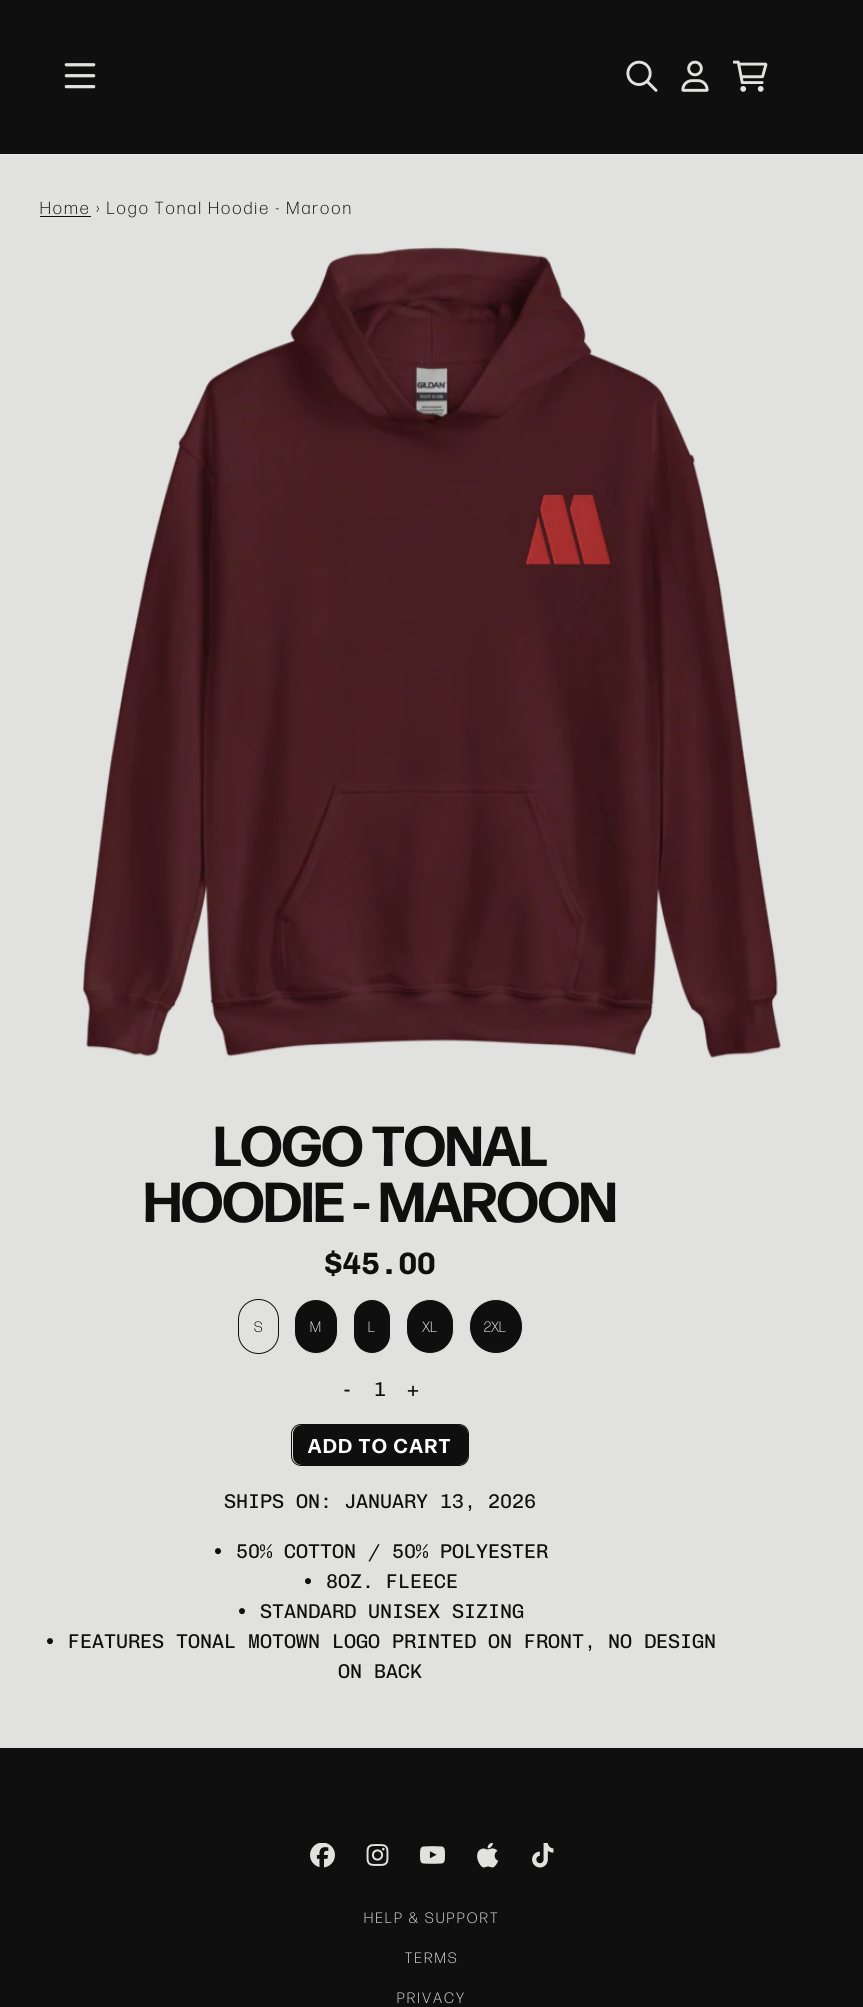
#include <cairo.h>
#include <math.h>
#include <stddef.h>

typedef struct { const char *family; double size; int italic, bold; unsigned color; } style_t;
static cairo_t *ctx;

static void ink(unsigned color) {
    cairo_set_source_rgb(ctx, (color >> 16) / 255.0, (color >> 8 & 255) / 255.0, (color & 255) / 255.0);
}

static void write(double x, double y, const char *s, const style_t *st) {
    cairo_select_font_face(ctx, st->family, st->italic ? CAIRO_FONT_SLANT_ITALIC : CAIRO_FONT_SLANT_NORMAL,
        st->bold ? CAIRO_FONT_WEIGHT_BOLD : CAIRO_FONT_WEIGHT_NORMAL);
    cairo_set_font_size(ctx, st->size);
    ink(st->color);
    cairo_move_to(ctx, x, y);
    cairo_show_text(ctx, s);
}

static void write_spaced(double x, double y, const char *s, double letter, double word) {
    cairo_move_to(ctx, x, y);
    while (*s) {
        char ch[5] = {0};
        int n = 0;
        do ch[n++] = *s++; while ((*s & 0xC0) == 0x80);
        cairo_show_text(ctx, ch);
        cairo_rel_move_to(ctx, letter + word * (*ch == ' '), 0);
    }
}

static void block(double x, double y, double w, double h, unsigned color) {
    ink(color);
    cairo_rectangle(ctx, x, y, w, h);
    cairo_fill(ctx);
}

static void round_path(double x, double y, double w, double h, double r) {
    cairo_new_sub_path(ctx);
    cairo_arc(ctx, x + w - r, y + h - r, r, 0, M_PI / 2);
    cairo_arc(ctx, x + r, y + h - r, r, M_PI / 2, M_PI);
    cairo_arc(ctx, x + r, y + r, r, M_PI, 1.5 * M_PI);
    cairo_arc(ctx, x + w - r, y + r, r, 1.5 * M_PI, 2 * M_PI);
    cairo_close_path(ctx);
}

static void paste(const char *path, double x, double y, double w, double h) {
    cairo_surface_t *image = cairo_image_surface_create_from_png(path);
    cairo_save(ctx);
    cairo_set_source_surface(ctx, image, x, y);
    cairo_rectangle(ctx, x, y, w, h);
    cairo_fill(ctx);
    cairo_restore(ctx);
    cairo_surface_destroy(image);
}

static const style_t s1 = {"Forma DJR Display", 56.25, 0, 1, 0x0f0f0f};
static const style_t s2 = {"Chivo Mono", 31, 0, 1, 0x0f0f0f};
static const style_t s3 = {"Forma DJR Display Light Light", 15, 0, 0, 0x0f0f0f};
static const style_t s4 = {"Forma DJR Display Light Light", 15, 0, 0, 0xe1e1df};
static const style_t s5 = {"Chivo Mono", 20, 0, 0, 0x0f0f0f};

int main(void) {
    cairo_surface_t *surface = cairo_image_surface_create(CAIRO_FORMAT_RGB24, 863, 2007);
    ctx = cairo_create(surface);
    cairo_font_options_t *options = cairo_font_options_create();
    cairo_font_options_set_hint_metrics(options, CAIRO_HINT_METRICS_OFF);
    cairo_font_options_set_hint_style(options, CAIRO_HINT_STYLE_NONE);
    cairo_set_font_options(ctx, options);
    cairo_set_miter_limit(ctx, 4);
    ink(0xe1e1df);
    cairo_paint(ctx);
    block(0, 0, 863, 154, 0x0f0f0f);
    block(0, 154, 863, 1, 0xe5e7eb);
    paste("pic1.png", 64, 63, 32, 26);
    paste("pic2.png", 626, 60, 32, 32);
    paste("pic3.png", 681, 60, 28, 32);
    paste("pic4.png", 733, 60, 35, 32);
    block(40, 216, 51, 1, 0x0f0f0f);
    cairo_select_font_face(ctx, "Forma DJR Display Light Light", CAIRO_FONT_SLANT_NORMAL, CAIRO_FONT_WEIGHT_NORMAL);
    cairo_set_font_size(ctx, 17.5);
    write_spaced(40, 214, "Home › Logo Tonal Hoodie - Maroon", 2.5, 0);
    paste("pic5.png", 82, 247, 699, 811);
    write(214, 1166, "LOGO TONAL", &s1);
    write(144, 1222, "HOODIE - MAROON", &s1);
    write(324, 1274, "$45.00", &s2);
    round_path(238.5, 1299.5, 40, 54, 20);
    cairo_set_line_width(ctx, 1);
    cairo_stroke(ctx);
    write(254, 1332, "S", &s3);
    round_path(294.5, 1299.5, 43, 54, 21.5);
    cairo_fill_preserve(ctx);
    ink(0xe1e1df);
    cairo_stroke(ctx);
    write(310, 1332, "M", &s4);
    ink(0x0f0f0f);
    round_path(353.5, 1299.5, 37, 54, 18.5);
    cairo_fill_preserve(ctx);
    ink(0xe1e1df);
    cairo_stroke(ctx);
    write(368, 1332, "L", &s4);
    ink(0x0f0f0f);
    round_path(406.5, 1299.5, 47, 54, 23.5);
    cairo_fill_preserve(ctx);
    ink(0xe1e1df);
    cairo_stroke(ctx);
    write(422, 1332, "XL", &s4);
    ink(0x0f0f0f);
    round_path(469.5, 1299.5, 53, 54, 26.5);
    cairo_fill_preserve(ctx);
    ink(0xe1e1df);
    cairo_stroke(ctx);
    write(484, 1332, "2XL", &s4);
    write(341, 1396, "-", &s5);
    write(374, 1396, "1", &s5);
    write(407, 1396, "+", &s5);
    round_path(293, 1425, 175, 40, 9);
    cairo_fill(ctx);
    round_path(291.5, 1424.5, 177, 41, 9.5);
    cairo_stroke(ctx);
    cairo_select_font_face(ctx, "Forma DJR Display", CAIRO_FONT_SLANT_NORMAL, CAIRO_FONT_WEIGHT_BOLD);
    ink(0xffffff);
    write_spaced(308, 1453, "ADD TO CART", 1.9, 0);
    write(224, 1508, "SHIPS ON: JANUARY 13, 2026", &s5);
    write(212, 1558, "• 50% COTTON / 50% POLYESTER", &s5);
    write(302, 1588, "• 8OZ. FLEECE", &s5);
    write(236, 1618, "• STANDARD UNISEX SIZING", &s5);
    write(44, 1648, "• FEATURES TONAL MOTOWN LOGO PRINTED ON FRONT, NO DESIGN", &s5);
    write(338, 1678, "ON BACK", &s5);
    block(0, 1748, 863, 259, 0x0f0f0f);
    paste("pic6.png", 310, 1843, 25, 25);
    paste("pic7.png", 366, 1844, 23, 22);
    paste("pic8.png", 420, 1846, 25, 18);
    paste("pic9.png", 477, 1843, 22, 25);
    paste("pic10.png", 532, 1843, 22, 25);
    cairo_select_font_face(ctx, "Forma DJR Display Light Light", CAIRO_FONT_SLANT_NORMAL, CAIRO_FONT_WEIGHT_NORMAL);
    cairo_set_font_size(ctx, 15);
    ink(0xe1e1df);
    write_spaced(364, 1923, "HELP & SUPPORT", 2.5, 0);
    write_spaced(405, 1963, "TERMS", 2.5, 0);
    write_spaced(397, 2003, "PRIVACY", 2.5, 0);
    cairo_surface_write_to_png(surface, "screenshot.png");
    cairo_font_options_destroy(options);
    cairo_destroy(ctx);
    cairo_surface_destroy(surface);
    return 0;
}
